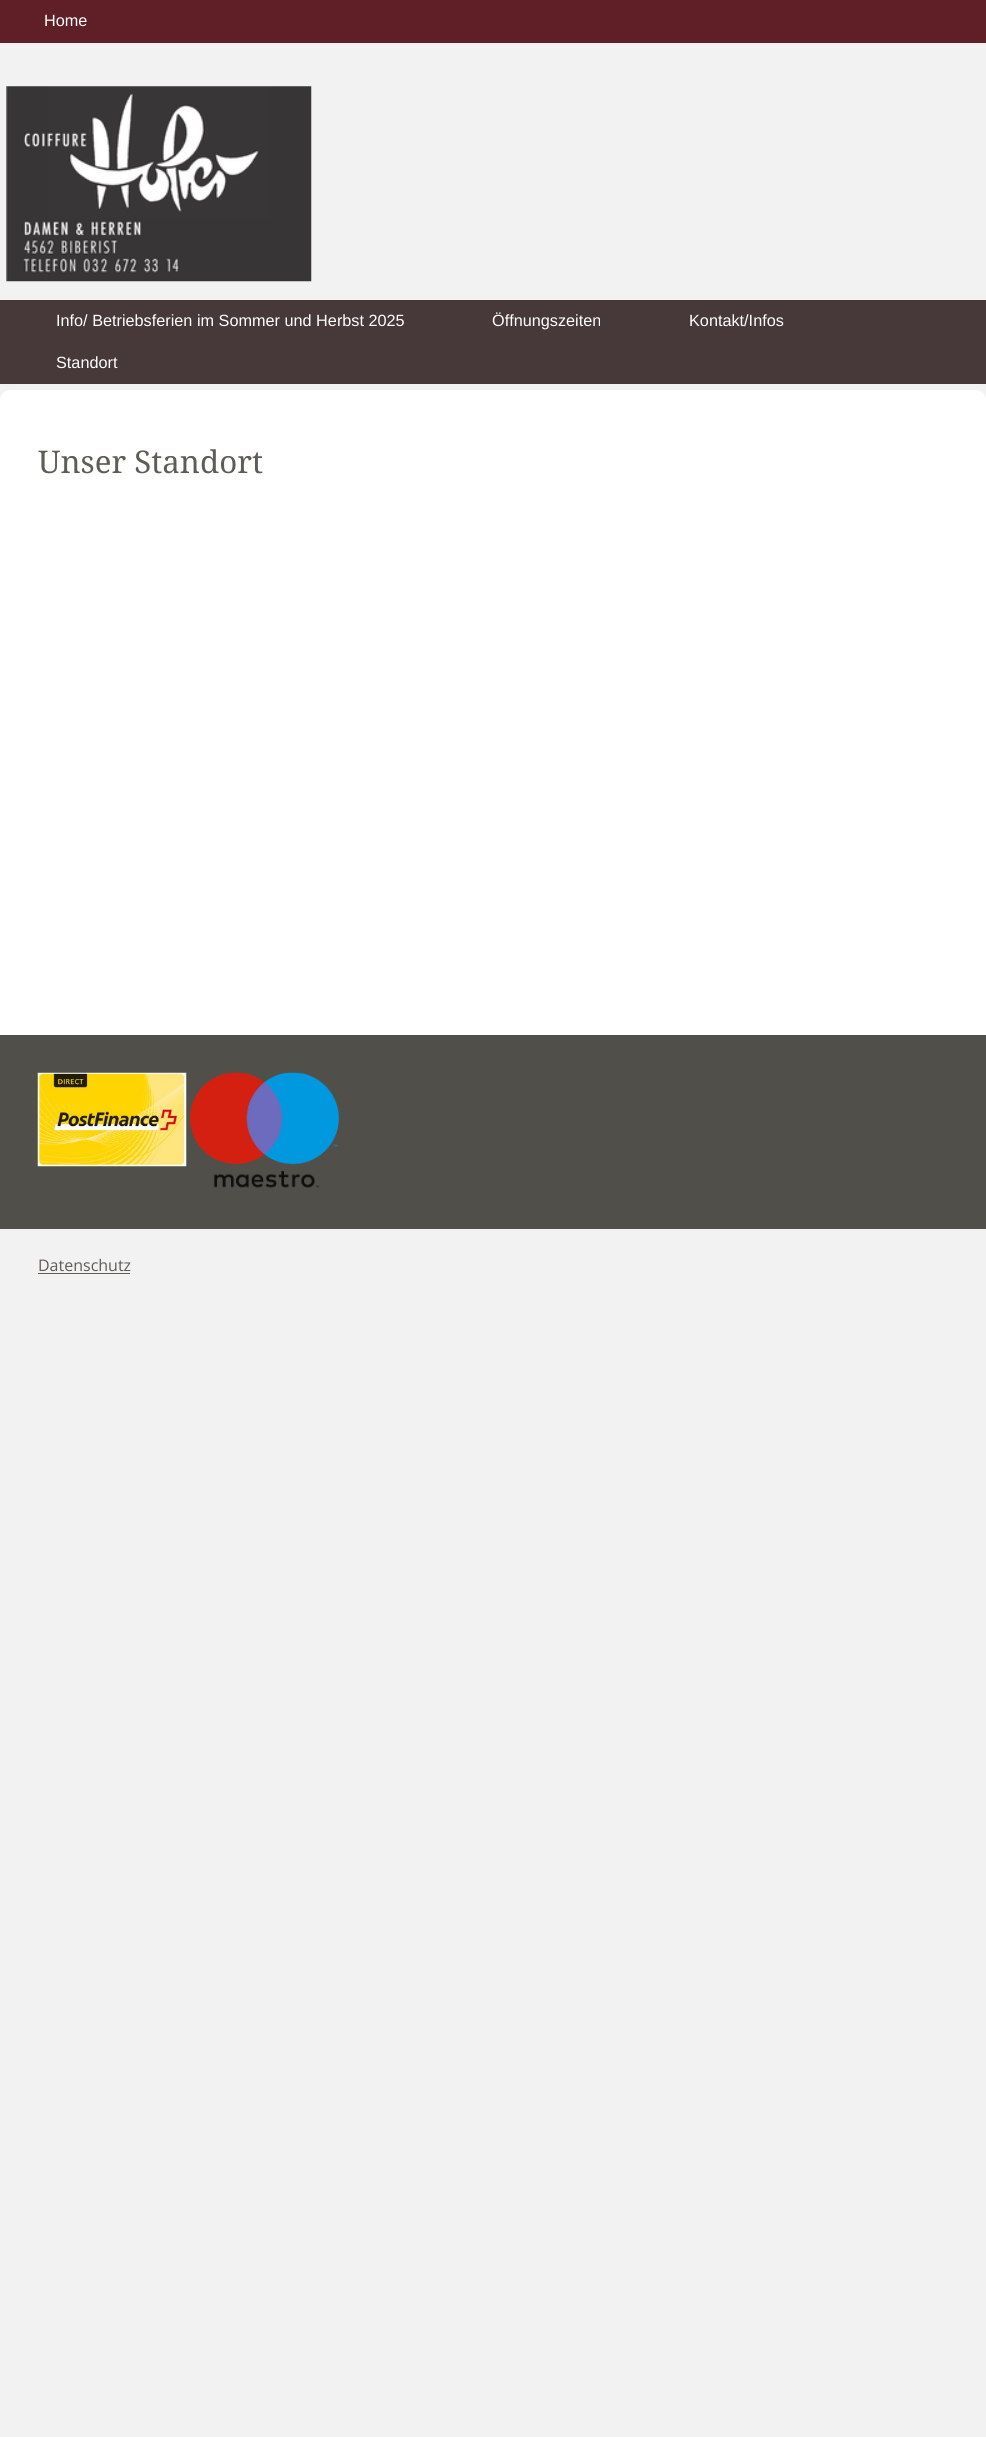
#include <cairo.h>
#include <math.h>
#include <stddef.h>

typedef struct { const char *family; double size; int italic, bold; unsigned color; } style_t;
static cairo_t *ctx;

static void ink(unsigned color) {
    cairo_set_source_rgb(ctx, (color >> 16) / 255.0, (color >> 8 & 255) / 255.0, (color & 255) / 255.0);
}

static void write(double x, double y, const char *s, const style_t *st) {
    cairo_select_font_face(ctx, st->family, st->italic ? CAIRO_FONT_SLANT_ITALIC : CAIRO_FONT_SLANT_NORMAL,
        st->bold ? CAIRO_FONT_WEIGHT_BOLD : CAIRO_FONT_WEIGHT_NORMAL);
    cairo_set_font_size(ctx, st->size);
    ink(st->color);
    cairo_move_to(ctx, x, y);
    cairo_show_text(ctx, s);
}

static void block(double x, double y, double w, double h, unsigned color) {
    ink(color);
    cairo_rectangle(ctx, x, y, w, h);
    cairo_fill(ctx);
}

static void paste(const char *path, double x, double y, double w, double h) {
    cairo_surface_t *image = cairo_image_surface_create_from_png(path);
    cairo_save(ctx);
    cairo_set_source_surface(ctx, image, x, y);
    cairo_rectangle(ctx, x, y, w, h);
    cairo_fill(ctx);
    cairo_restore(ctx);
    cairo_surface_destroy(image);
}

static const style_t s1 = {"Liberation Sans", 16.25, 0, 0, 0xffffff};
static const style_t s2 = {"Droid Serif", 31.25, 0, 0, 0x5f5b55};
static const style_t s3 = {"Open Sans", 16, 0, 0, 0x5f5b55};

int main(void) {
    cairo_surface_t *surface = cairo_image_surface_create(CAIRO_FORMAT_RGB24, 986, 2437);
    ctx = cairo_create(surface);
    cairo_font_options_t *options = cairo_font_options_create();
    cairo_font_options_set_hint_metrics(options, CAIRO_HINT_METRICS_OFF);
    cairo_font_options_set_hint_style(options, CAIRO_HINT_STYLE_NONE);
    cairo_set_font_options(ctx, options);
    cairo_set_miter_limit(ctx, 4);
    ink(0xf2f2f2);
    cairo_paint(ctx);
    block(0, 0, 986, 43, 0x601f27);
    write(44, 26, "Home", &s1);
    paste("pic1.png", 6, 86, 306, 196);
    block(0, 300, 986, 84, 0x47383a);
    write(56, 326, "Info/ Betriebsferien im Sommer und Herbst 2025", &s1);
    write(492, 326, "Öffnungszeiten", &s1);
    write(689, 326, "Kontakt/Infos", &s1);
    write(56, 368, "Standort", &s1);
    cairo_new_path(ctx);
    cairo_move_to(ctx, 10, 390);
    cairo_line_to(ctx, 976, 390);
    cairo_curve_to(ctx, 981.5, 390, 986, 394.5, 986, 400);
    cairo_line_to(ctx, 986, 1035);
    cairo_line_to(ctx, 0, 1035);
    cairo_line_to(ctx, 0, 400);
    cairo_curve_to(ctx, 0, 394.5, 4.5, 390, 10, 390);
    cairo_close_path(ctx);
    cairo_fill(ctx);
    write(38, 473, "Unser Standort", &s2);
    block(0, 1035, 986, 194, 0x504f4a);
    paste("pic2.png", 37, 1072, 150, 95);
    paste("pic3.png", 190, 1072, 149, 116);
    write(38, 1271, "Datenschutz", &s3);
    block(38, 1273, 92, 1, 0x5f5b55);
    cairo_surface_write_to_png(surface, "screenshot.png");
    cairo_font_options_destroy(options);
    cairo_destroy(ctx);
    cairo_surface_destroy(surface);
    return 0;
}
